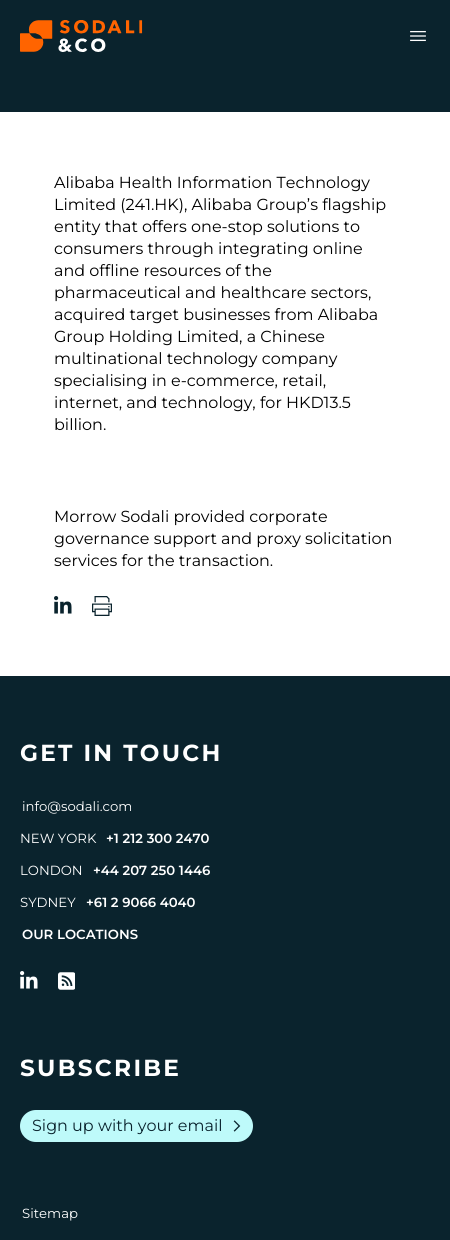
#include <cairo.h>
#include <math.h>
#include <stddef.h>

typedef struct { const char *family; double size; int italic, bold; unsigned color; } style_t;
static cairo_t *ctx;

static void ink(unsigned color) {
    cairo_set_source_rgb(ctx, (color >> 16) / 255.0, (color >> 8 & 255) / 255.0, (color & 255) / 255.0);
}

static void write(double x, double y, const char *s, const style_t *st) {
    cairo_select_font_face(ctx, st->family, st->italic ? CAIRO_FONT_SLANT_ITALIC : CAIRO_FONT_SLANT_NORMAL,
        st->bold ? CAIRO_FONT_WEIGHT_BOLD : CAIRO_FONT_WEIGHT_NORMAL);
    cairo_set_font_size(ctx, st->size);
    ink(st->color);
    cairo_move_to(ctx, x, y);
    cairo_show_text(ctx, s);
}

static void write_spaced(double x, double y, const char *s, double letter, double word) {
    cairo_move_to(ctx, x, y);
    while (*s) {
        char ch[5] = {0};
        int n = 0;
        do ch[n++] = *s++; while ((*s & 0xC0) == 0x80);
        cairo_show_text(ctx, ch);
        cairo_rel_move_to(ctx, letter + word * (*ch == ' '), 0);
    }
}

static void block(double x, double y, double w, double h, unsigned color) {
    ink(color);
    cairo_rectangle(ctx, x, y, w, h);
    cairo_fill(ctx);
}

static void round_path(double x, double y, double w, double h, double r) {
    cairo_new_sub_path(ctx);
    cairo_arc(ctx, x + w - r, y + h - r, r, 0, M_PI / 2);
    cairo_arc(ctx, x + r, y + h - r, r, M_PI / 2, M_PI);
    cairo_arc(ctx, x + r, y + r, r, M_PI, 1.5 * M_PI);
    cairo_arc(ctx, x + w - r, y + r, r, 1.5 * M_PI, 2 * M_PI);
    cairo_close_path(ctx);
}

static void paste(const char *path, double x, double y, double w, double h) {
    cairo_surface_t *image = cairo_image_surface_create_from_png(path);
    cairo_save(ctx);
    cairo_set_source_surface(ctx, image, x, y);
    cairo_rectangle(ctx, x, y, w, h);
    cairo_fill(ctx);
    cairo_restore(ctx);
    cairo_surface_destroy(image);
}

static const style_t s1 = {"Montserrat Thin", 16, 0, 0, 0x000000};
static const style_t s2 = {"Montserrat Thin", 13.25, 0, 0, 0xffffff};
static const style_t s3 = {"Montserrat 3 Thin", 13.25, 0, 0, 0xffffff};
static const style_t s4 = {"Montserrat Thin", 16, 0, 0, 0x0a232d};

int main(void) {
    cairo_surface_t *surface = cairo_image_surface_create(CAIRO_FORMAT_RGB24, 450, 1240);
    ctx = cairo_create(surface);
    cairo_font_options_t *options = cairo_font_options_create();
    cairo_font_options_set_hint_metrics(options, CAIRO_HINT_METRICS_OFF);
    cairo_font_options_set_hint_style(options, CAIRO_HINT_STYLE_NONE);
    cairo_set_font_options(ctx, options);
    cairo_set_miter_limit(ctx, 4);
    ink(0x0a232d);
    cairo_paint(ctx);
    paste("pic1.png", 20, 20, 123, 32);
    paste("pic2.png", 410, 30, 16, 12);
    block(0, 112, 450, 564, 0xffffff);
    write(54, 188, "Alibaba Health Information Technology", &s1);
    write(54, 210, "Limited (241.HK), Alibaba Group’s flagship", &s1);
    write(54, 232, "entity that offers one-stop solutions to", &s1);
    write(54, 254, "consumers through integrating online", &s1);
    write(54, 276, "and offline resources of the", &s1);
    write(54, 298, "pharmaceutical and healthcare sectors,", &s1);
    write(54, 320, "acquired target businesses from Alibaba", &s1);
    write(54, 342, "Group Holding Limited, a Chinese", &s1);
    write(54, 364, "multinational technology company", &s1);
    write(54, 386, "specialising in e-commerce, retail,", &s1);
    write(54, 408, "internet, and technology, for HKD13.5", &s1);
    write(54, 430, "billion.", &s1);
    write(54, 522, "Morrow Sodali provided corporate", &s1);
    write(54, 544, "governance support and proxy solicitation", &s1);
    write(54, 566, "services for the transaction.", &s1);
    paste("pic3.png", 54, 596, 18, 18);
    paste("pic4.png", 92, 596, 20, 20);
    cairo_select_font_face(ctx, "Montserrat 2 Thin", CAIRO_FONT_SLANT_NORMAL, CAIRO_FONT_WEIGHT_NORMAL);
    cairo_set_font_size(ctx, 23.25);
    ink(0xffffff);
    write_spaced(20, 761, "GET IN TOUCH", 2.25, 0);
    write(22, 811, "info@sodali.com", &s2);
    write(20, 843, "NEW YORK", &s2);
    write(106, 843, "+1 212 300 2470", &s3);
    write(20, 875, "LONDON", &s2);
    write(93, 875, "+44 207 250 1446", &s3);
    write(20, 907, "SYDNEY", &s2);
    write(86, 907, "+61 2 9066 4040", &s3);
    write(22, 939, "OUR LOCATIONS", &s3);
    paste("pic5.png", 20, 971, 18, 18);
    paste("pic6.png", 58, 972, 17, 18);
    cairo_select_font_face(ctx, "Montserrat 2 Thin", CAIRO_FONT_SLANT_NORMAL, CAIRO_FONT_WEIGHT_NORMAL);
    cairo_set_font_size(ctx, 23.25);
    write_spaced(20, 1076, "SUBSCRIBE", 2.25, 0);
    ink(0xbefafa);
    round_path(20, 1110, 233, 32, 16);
    cairo_fill(ctx);
    write(32, 1131, "Sign up with your email", &s4);
    paste("pic7.png", 233, 1120, 8, 12);
    write(22, 1218, "Sitemap", &s2);
    cairo_surface_write_to_png(surface, "screenshot.png");
    cairo_font_options_destroy(options);
    cairo_destroy(ctx);
    cairo_surface_destroy(surface);
    return 0;
}
